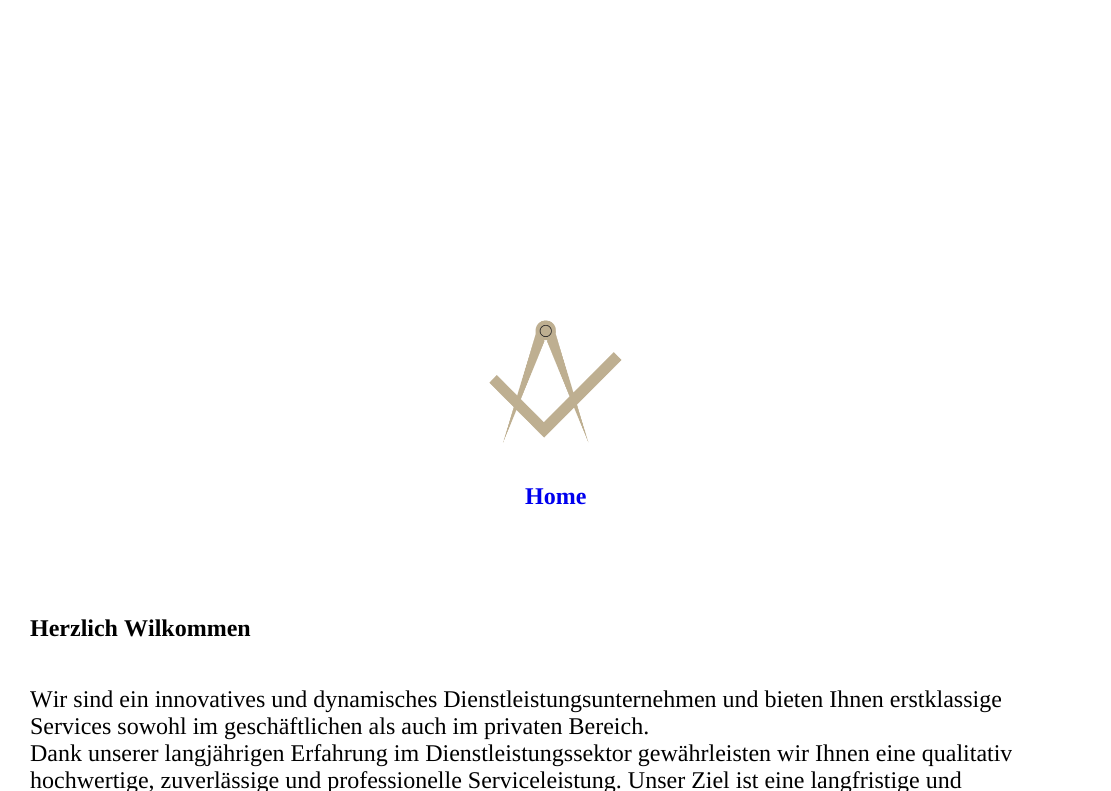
#include <cairo.h>
#include <math.h>
#include <stddef.h>

typedef struct { const char *family; double size; int italic, bold; unsigned color; } style_t;
static cairo_t *ctx;

static void ink(unsigned color) {
    cairo_set_source_rgb(ctx, (color >> 16) / 255.0, (color >> 8 & 255) / 255.0, (color & 255) / 255.0);
}

static void write(double x, double y, const char *s, const style_t *st) {
    cairo_select_font_face(ctx, st->family, st->italic ? CAIRO_FONT_SLANT_ITALIC : CAIRO_FONT_SLANT_NORMAL,
        st->bold ? CAIRO_FONT_WEIGHT_BOLD : CAIRO_FONT_WEIGHT_NORMAL);
    cairo_set_font_size(ctx, st->size);
    ink(st->color);
    cairo_move_to(ctx, x, y);
    cairo_show_text(ctx, s);
}

static void paste(const char *path, double x, double y, double w, double h) {
    cairo_surface_t *image = cairo_image_surface_create_from_png(path);
    cairo_save(ctx);
    cairo_set_source_surface(ctx, image, x, y);
    cairo_rectangle(ctx, x, y, w, h);
    cairo_fill(ctx);
    cairo_restore(ctx);
    cairo_surface_destroy(image);
}

static const style_t s1 = {"Liberation Serif", 24, 0, 1, 0x0000ee};
static const style_t s2 = {"Liberation Serif", 24, 0, 1, 0x000000};
static const style_t s3 = {"Liberation Serif", 24, 0, 0, 0x000000};

int main(void) {
    cairo_surface_t *surface = cairo_image_surface_create(CAIRO_FORMAT_RGB24, 1111, 791);
    ctx = cairo_create(surface);
    cairo_font_options_t *options = cairo_font_options_create();
    cairo_font_options_set_hint_metrics(options, CAIRO_HINT_METRICS_OFF);
    cairo_font_options_set_hint_style(options, CAIRO_HINT_STYLE_NONE);
    cairo_set_font_options(ctx, options);
    cairo_set_miter_limit(ctx, 4);
    ink(0xffffff);
    cairo_paint(ctx);
    paste("pic1.png", 489, 320, 133, 123);
    write(525, 504, "Home", &s1);
    write(30, 636, "Herzlich Wilkommen", &s2);
    write(30, 707, "Wir sind ein innovatives und dynamisches Dienstleistungsunternehmen und bieten Ihnen erstklassige", &s3);
    write(30, 734, "Services sowohl im geschäftlichen als auch im privaten Bereich.", &s3);
    write(30, 761, "Dank unserer langjährigen Erfahrung im Dienstleistungssektor gewährleisten wir Ihnen eine qualitativ", &s3);
    write(30, 788, "hochwertige, zuverlässige und professionelle Serviceleistung. Unser Ziel ist eine langfristige und", &s3);
    cairo_surface_write_to_png(surface, "screenshot.png");
    cairo_font_options_destroy(options);
    cairo_destroy(ctx);
    cairo_surface_destroy(surface);
    return 0;
}
